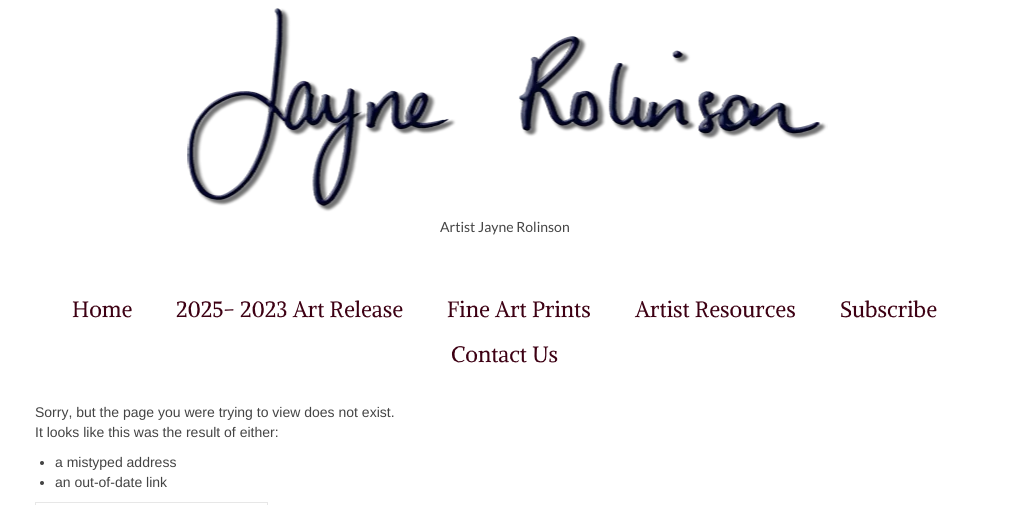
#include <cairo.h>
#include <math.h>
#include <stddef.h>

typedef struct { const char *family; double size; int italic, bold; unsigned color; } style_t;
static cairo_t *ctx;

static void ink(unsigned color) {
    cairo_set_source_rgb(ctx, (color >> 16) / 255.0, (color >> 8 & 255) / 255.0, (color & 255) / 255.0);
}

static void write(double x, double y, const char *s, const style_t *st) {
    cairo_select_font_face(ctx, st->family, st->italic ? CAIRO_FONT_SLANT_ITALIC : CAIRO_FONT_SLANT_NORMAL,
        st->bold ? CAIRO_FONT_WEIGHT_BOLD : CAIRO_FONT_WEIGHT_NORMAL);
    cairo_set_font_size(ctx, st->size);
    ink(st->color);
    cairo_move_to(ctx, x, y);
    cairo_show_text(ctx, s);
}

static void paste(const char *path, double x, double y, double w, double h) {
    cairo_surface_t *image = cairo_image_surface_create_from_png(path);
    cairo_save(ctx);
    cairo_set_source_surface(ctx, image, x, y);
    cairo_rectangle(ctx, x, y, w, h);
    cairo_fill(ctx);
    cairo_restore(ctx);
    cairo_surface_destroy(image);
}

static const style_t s1 = {"Lato", 14, 0, 0, 0x444444};
static const style_t s2 = {"Alike Angular", 22, 0, 0, 0x3d0013};
static const style_t s3 = {"Liberation Sans", 14, 0, 0, 0x444444};

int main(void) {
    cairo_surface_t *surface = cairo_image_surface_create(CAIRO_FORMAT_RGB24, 1009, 505);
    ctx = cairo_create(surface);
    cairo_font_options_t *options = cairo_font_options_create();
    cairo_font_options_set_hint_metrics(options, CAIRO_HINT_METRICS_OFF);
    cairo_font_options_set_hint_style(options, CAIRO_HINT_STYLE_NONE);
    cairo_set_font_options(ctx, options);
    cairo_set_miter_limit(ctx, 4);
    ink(0xffffff);
    cairo_paint(ctx);
    paste("pic1.png", 187, 8, 641, 204);
    write(440, 232, "Artist Jayne Rolinson", &s1);
    write(72, 317, "Home", &s2);
    write(176, 317, "2025- 2023 Art Release", &s2);
    write(447, 317, "Fine Art Prints", &s2);
    write(635, 317, "Artist Resources", &s2);
    write(840, 317, "Subscribe", &s2);
    write(451, 362, "Contact Us", &s2);
    write(35, 417, "Sorry, but the page you were trying to view does not exist.", &s3);
    write(35, 437, "It looks like this was the result of either:", &s3);
    cairo_new_path(ctx);
    cairo_arc(ctx, 42, 463, 2, 0, 2 * M_PI);
    cairo_fill(ctx);
    write(55, 467, "a mistyped address", &s3);
    cairo_new_path(ctx);
    cairo_arc(ctx, 42, 483, 2, 0, 2 * M_PI);
    cairo_fill(ctx);
    write(55, 487, "an out-of-date link", &s3);
    cairo_rectangle(ctx, 35.5, 502.5, 232, 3);
    ink(0xe7e7e7);
    cairo_set_line_width(ctx, 1);
    cairo_stroke(ctx);
    cairo_surface_write_to_png(surface, "screenshot.png");
    cairo_font_options_destroy(options);
    cairo_destroy(ctx);
    cairo_surface_destroy(surface);
    return 0;
}
